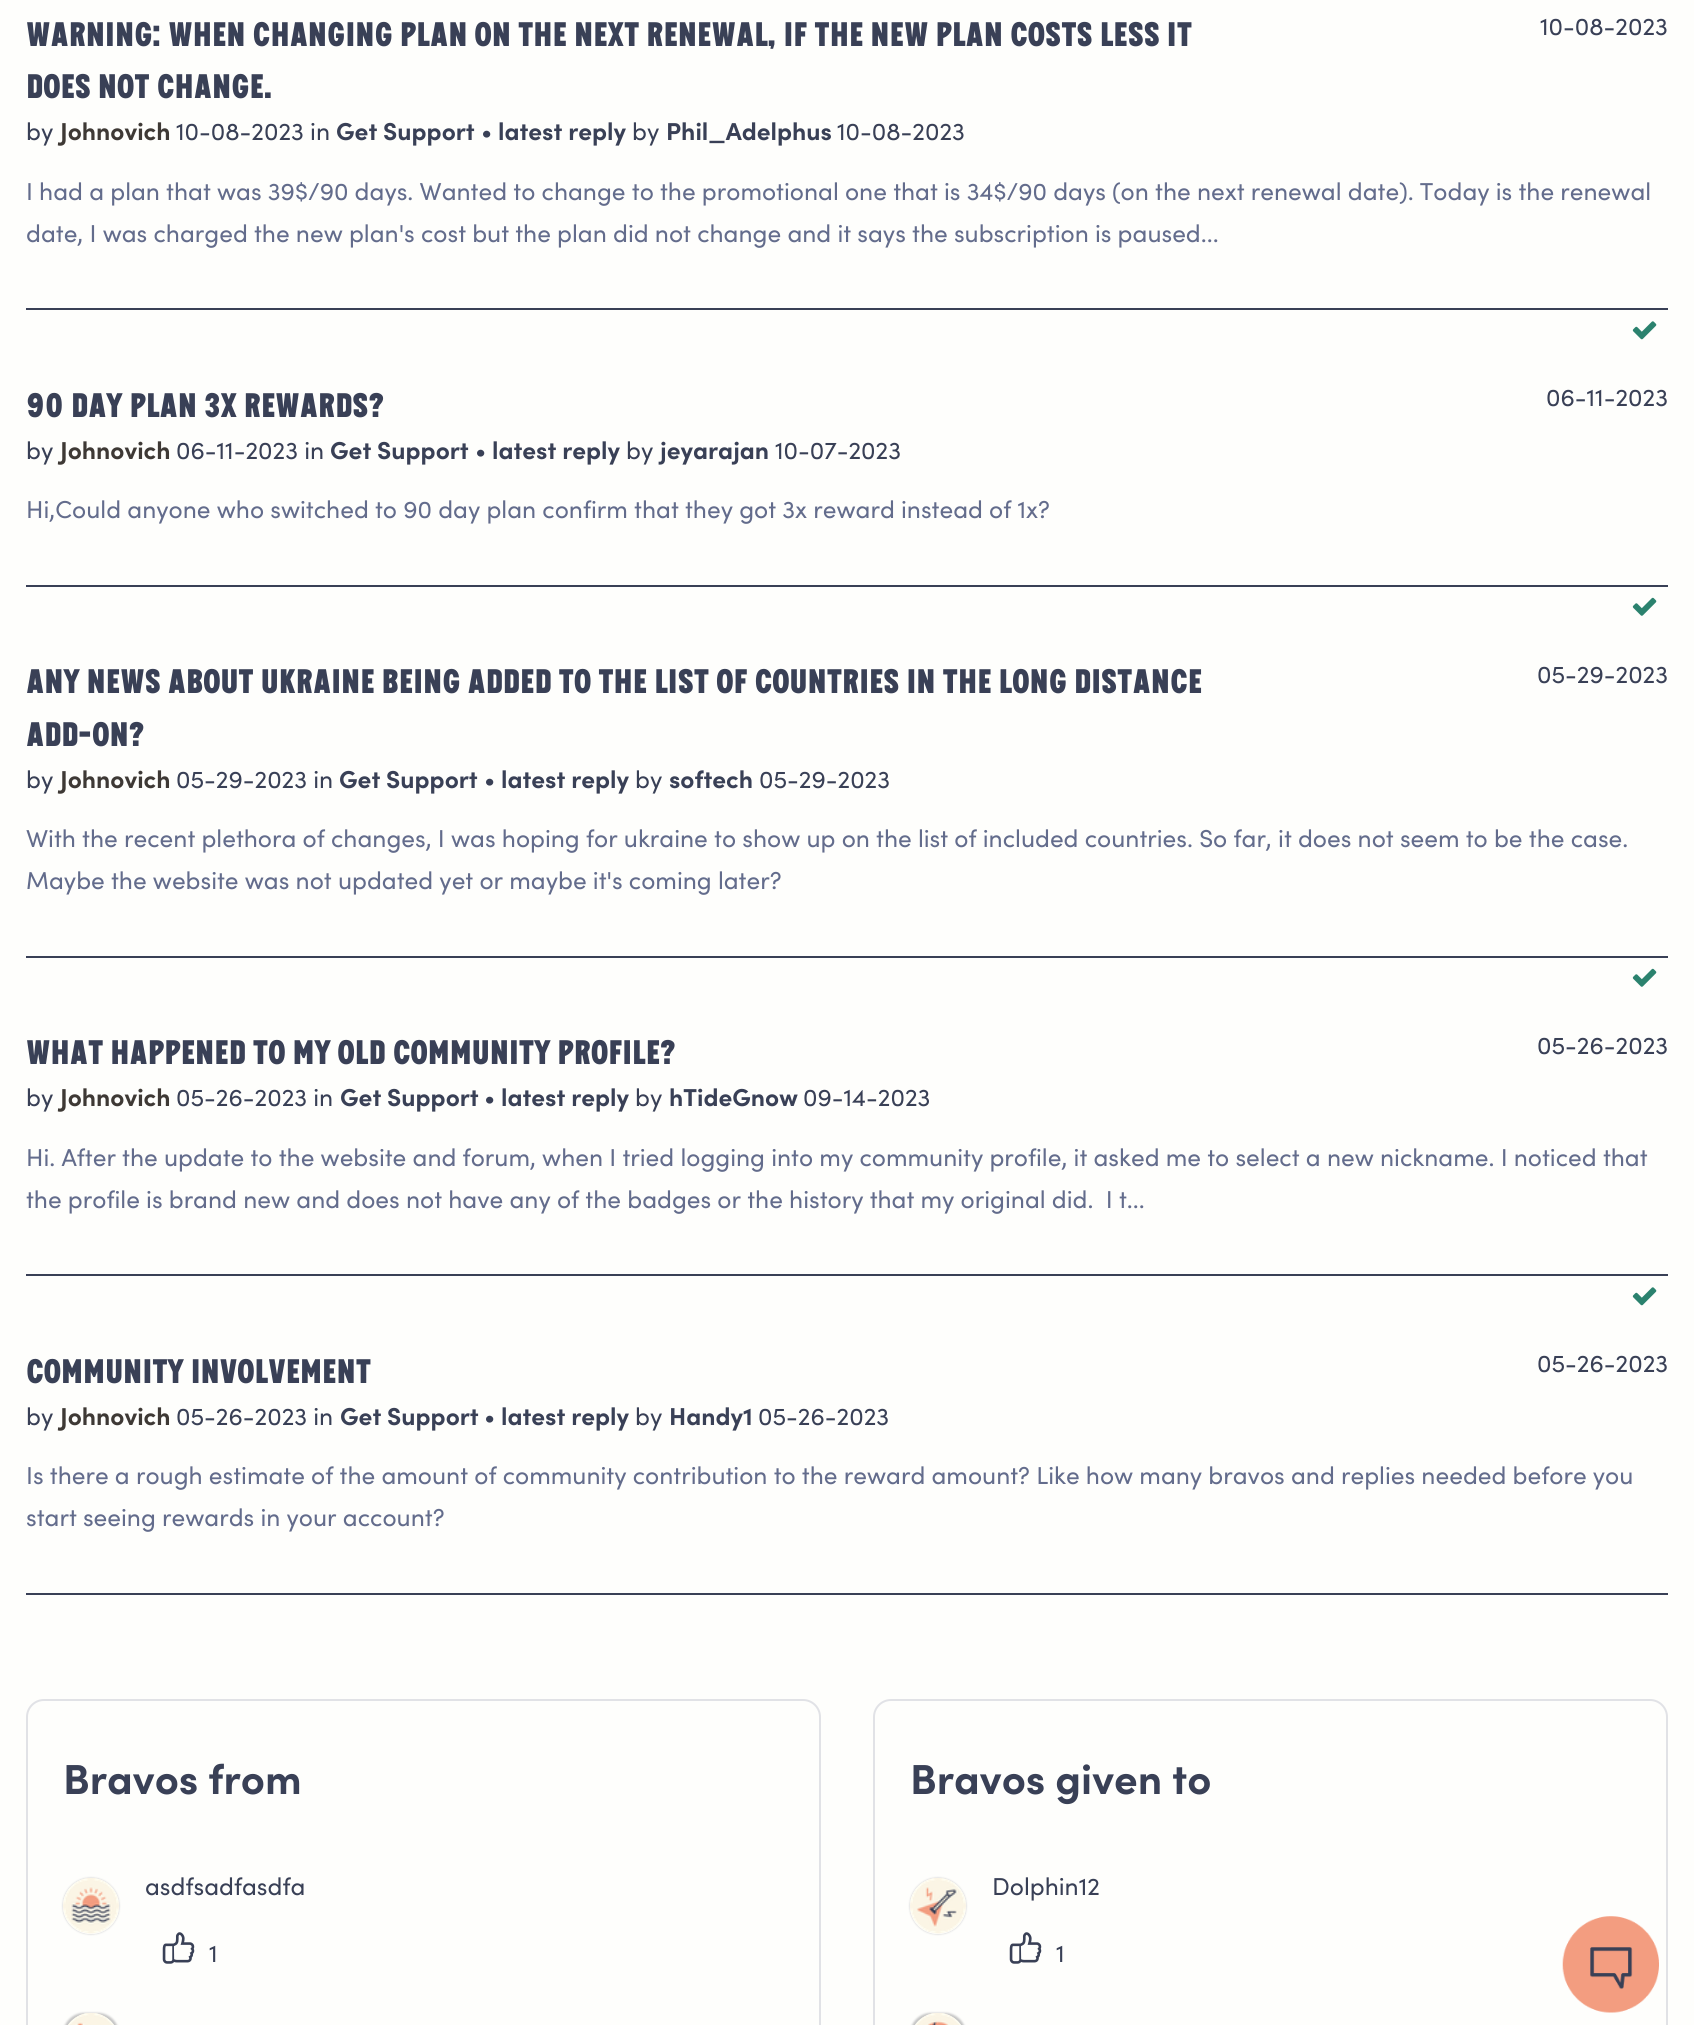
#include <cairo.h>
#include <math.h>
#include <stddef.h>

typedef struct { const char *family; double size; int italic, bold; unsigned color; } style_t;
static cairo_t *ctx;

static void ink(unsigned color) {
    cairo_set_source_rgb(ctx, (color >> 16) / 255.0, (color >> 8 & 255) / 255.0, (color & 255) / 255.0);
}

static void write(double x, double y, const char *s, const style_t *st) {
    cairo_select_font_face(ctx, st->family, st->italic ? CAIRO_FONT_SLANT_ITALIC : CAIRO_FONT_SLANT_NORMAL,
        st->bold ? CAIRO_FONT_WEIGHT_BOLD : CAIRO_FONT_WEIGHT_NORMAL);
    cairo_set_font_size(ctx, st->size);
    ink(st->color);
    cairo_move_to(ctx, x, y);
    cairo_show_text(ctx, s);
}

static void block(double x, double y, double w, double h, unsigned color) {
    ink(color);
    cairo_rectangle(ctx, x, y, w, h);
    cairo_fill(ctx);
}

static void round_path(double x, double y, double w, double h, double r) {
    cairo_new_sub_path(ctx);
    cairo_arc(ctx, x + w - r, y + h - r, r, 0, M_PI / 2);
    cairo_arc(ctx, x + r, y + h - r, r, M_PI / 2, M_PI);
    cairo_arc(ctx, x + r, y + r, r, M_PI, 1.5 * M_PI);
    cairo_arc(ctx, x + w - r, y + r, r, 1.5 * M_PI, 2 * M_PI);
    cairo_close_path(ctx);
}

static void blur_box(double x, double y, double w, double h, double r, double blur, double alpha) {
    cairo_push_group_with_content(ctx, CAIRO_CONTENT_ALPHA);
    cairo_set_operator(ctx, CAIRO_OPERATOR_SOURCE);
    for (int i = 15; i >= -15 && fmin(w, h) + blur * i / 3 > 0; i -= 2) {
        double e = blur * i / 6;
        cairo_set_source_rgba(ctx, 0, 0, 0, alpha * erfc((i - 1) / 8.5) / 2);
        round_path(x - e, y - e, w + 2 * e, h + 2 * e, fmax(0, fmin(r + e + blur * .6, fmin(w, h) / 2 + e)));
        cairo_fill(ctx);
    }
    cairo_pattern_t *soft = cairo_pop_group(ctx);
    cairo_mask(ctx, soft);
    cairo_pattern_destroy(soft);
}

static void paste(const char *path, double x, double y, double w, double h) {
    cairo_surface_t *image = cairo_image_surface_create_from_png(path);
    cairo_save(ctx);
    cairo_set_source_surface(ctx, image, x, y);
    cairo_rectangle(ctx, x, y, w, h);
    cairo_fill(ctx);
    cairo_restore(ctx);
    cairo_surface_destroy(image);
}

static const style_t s1 = {"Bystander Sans", 35, 0, 1, 0x394056};
static const style_t s2 = {"Sofia", 24.5, 0, 0, 0x394056};
static const style_t s3 = {"Sofia", 24.5, 0, 1, 0x3e3935};
static const style_t s4 = {"Sofia", 24.5, 0, 1, 0x394056};
static const style_t s5 = {"Sofia", 24.5, 0, 0, 0x636c8c};
static const style_t s6 = {"Sofia", 42, 0, 1, 0x394056};

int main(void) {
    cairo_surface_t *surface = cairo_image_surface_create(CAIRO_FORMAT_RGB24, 1694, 2025);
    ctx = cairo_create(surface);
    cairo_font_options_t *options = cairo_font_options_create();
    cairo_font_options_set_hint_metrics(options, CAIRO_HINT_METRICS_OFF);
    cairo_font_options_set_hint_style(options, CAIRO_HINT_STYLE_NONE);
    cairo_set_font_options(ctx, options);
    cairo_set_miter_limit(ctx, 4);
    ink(0xfefefc);
    cairo_paint(ctx);
    block(26, 308, 1642, 2, 0x394056);
    write(26, 46, "Warning: When changing plan on the next renewal, if the new plan costs less it", &s1);
    write(26, 98, "does not change.", &s1);
    write(26, 140, "by", &s2);
    write(60, 140, "Johnovich", &s3);
    write(176, 140, "10-08-2023 in", &s2);
    write(336, 140, "Get Support", &s4);
    write(481, 140, "•", &s2);
    write(498, 140, "latest reply", &s4);
    write(632, 140, "by", &s2);
    write(666, 140, "Phil_Adelphus", &s4);
    write(837, 140, "10-08-2023", &s2);
    write(1540, 35, "10-08-2023", &s2);
    write(26, 200, "I had a plan that was 39$/90 days. Wanted to change to the promotional one that is 34$/90 days (on the next renewal date). Today is the renewal", &s5);
    write(26, 242, "date, I was charged the new plan's cost but the plan did not change and it says the subscription is paused...", &s5);
    block(26, 585, 1642, 2, 0x394056);
    paste("pic1.png", 1632, 321, 25, 19);
    write(26, 417, "90 day plan 3x rewards?", &s1);
    write(26, 459, "by", &s2);
    write(60, 459, "Johnovich", &s3);
    write(176, 459, "06-11-2023 in", &s2);
    write(330, 459, "Get Support", &s4);
    write(475, 459, "•", &s2);
    write(492, 459, "latest reply", &s4);
    write(626, 459, "by", &s2);
    write(660, 459, "jeyarajan", &s4);
    write(775, 459, "10-07-2023", &s2);
    write(1546, 406, "06-11-2023", &s2);
    write(26, 518, "Hi,Could anyone who switched to 90 day plan confirm that they got 3x reward instead of 1x?", &s5);
    block(26, 956, 1642, 2, 0x394056);
    paste("pic2.png", 1632, 597, 25, 19);
    write(26, 693, "Any news about ukraine being added to the list of countries in the long distance", &s1);
    write(26, 746, "add-on?", &s1);
    write(26, 788, "by", &s2);
    write(60, 788, "Johnovich", &s3);
    write(176, 788, "05-29-2023 in", &s2);
    write(339, 788, "Get Support", &s4);
    write(484, 788, "•", &s2);
    write(501, 788, "latest reply", &s4);
    write(635, 788, "by", &s2);
    write(669, 788, "softech", &s4);
    write(759, 788, "05-29-2023", &s2);
    write(1537, 683, "05-29-2023", &s2);
    write(26, 847, "With the recent plethora of changes, I was hoping for ukraine to show up on the list of included countries. So far, it does not seem to be the case.", &s5);
    write(26, 889, "Maybe the website was not updated yet or maybe it's coming later?", &s5);
    block(26, 1274, 1642, 2, 0x394056);
    paste("pic3.png", 1632, 968, 25, 19);
    write(26, 1064, "What happened to my old community profile?", &s1);
    write(26, 1106, "by", &s2);
    write(60, 1106, "Johnovich", &s3);
    write(176, 1106, "05-26-2023 in", &s2);
    write(340, 1106, "Get Support", &s4);
    write(484, 1106, "•", &s2);
    write(501, 1106, "latest reply", &s4);
    write(635, 1106, "by", &s2);
    write(669, 1106, "hTideGnow", &s4);
    write(803, 1106, "09-14-2023", &s2);
    write(1537, 1054, "05-26-2023", &s2);
    write(26, 1166, "Hi. After the update to the website and forum, when I tried logging into my community profile, it asked me to select a new nickname. I noticed that", &s5);
    write(26, 1208, "the profile is brand new and does not have any of the badges or the history that my original did.  I t...", &s5);
    block(26, 1593, 1642, 2, 0x394056);
    paste("pic1.png", 1632, 1287, 25, 19);
    write(26, 1383, "Community involvement", &s1);
    write(26, 1425, "by", &s2);
    write(60, 1425, "Johnovich", &s3);
    write(176, 1425, "05-26-2023 in", &s2);
    write(340, 1425, "Get Support", &s4);
    write(484, 1425, "•", &s2);
    write(501, 1425, "latest reply", &s4);
    write(635, 1425, "by", &s2);
    write(669, 1425, "Handy1", &s4);
    write(758, 1425, "05-26-2023", &s2);
    write(1537, 1372, "05-26-2023", &s2);
    write(26, 1484, "Is there a rough estimate of the amount of community contribution to the reward amount? Like how many bravos and replies needed before you", &s5);
    write(26, 1526, "start seeing rewards in your account?", &s5);
    round_path(27, 1700, 793, 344, 17);
    ink(0xe1e2e6);
    cairo_stroke(ctx);
    write(63, 1794, "Bravos from", &s6);
    cairo_save(ctx);
    cairo_set_fill_rule(ctx, CAIRO_FILL_RULE_EVEN_ODD);
    cairo_new_path(ctx);
    cairo_move_to(ctx, 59, 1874);
    cairo_line_to(ctx, 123, 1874);
    cairo_line_to(ctx, 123, 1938);
    cairo_line_to(ctx, 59, 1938);
    cairo_close_path(ctx);
    cairo_move_to(ctx, 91, 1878);
    cairo_curve_to(ctx, 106.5, 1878, 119, 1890.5, 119, 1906);
    cairo_curve_to(ctx, 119, 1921.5, 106.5, 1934, 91, 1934);
    cairo_curve_to(ctx, 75.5, 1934, 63, 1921.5, 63, 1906);
    cairo_curve_to(ctx, 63, 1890.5, 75.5, 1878, 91, 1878);
    cairo_close_path(ctx);
    cairo_clip(ctx);
    ink(0xc4c4c4);
    blur_box(63, 1878, 56, 56, 28, 1, 1);
    cairo_restore(ctx);
    paste("pic4.png", 63, 1878, 56, 56);
    write(145, 1895, "asdfsadfasdfa", &s2);
    paste("pic5.png", 162, 1932, 33, 32);
    write(209, 1962, "1", &s2);
    cairo_save(ctx);
    cairo_set_fill_rule(ctx, CAIRO_FILL_RULE_EVEN_ODD);
    cairo_new_path(ctx);
    cairo_move_to(ctx, 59, 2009);
    cairo_line_to(ctx, 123, 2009);
    cairo_line_to(ctx, 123, 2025);
    cairo_line_to(ctx, 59, 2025);
    cairo_close_path(ctx);
    cairo_move_to(ctx, 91, 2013);
    cairo_curve_to(ctx, 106.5, 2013, 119, 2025.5, 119, 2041);
    cairo_curve_to(ctx, 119, 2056.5, 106.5, 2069, 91, 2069);
    cairo_curve_to(ctx, 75.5, 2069, 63, 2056.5, 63, 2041);
    cairo_curve_to(ctx, 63, 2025.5, 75.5, 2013, 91, 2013);
    cairo_close_path(ctx);
    cairo_clip(ctx);
    ink(0xc4c4c4);
    blur_box(63, 2013, 56, 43, 28, 1, 1);
    cairo_restore(ctx);
    paste("pic6.png", 68, 2013, 46, 12);
    round_path(874, 1700, 793, 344, 17);
    ink(0xe1e2e6);
    cairo_stroke(ctx);
    write(910, 1794, "Bravos given to", &s6);
    cairo_save(ctx);
    cairo_set_fill_rule(ctx, CAIRO_FILL_RULE_EVEN_ODD);
    cairo_new_path(ctx);
    cairo_move_to(ctx, 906, 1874);
    cairo_line_to(ctx, 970, 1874);
    cairo_line_to(ctx, 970, 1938);
    cairo_line_to(ctx, 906, 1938);
    cairo_close_path(ctx);
    cairo_move_to(ctx, 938, 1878);
    cairo_curve_to(ctx, 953.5, 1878, 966, 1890.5, 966, 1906);
    cairo_curve_to(ctx, 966, 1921.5, 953.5, 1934, 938, 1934);
    cairo_curve_to(ctx, 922.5, 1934, 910, 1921.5, 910, 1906);
    cairo_curve_to(ctx, 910, 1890.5, 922.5, 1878, 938, 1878);
    cairo_close_path(ctx);
    cairo_clip(ctx);
    ink(0xc4c4c4);
    blur_box(910, 1878, 56, 56, 28, 1, 1);
    cairo_restore(ctx);
    paste("pic7.png", 910, 1878, 56, 56);
    write(992, 1895, "Dolphin12", &s2);
    paste("pic5.png", 1009, 1932, 33, 32);
    write(1056, 1962, "1", &s2);
    cairo_save(ctx);
    cairo_set_fill_rule(ctx, CAIRO_FILL_RULE_EVEN_ODD);
    cairo_new_path(ctx);
    cairo_move_to(ctx, 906, 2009);
    cairo_line_to(ctx, 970, 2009);
    cairo_line_to(ctx, 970, 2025);
    cairo_line_to(ctx, 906, 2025);
    cairo_close_path(ctx);
    cairo_move_to(ctx, 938, 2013);
    cairo_curve_to(ctx, 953.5, 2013, 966, 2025.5, 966, 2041);
    cairo_curve_to(ctx, 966, 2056.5, 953.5, 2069, 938, 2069);
    cairo_curve_to(ctx, 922.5, 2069, 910, 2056.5, 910, 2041);
    cairo_curve_to(ctx, 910, 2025.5, 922.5, 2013, 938, 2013);
    cairo_close_path(ctx);
    cairo_clip(ctx);
    ink(0xc4c4c4);
    blur_box(910, 2013, 56, 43, 28, 1, 1);
    cairo_restore(ctx);
    paste("pic8.png", 915, 2013, 46, 12);
    paste("pic9.png", 1562, 1916, 97, 97);
    cairo_surface_write_to_png(surface, "screenshot.png");
    cairo_font_options_destroy(options);
    cairo_destroy(ctx);
    cairo_surface_destroy(surface);
    return 0;
}
